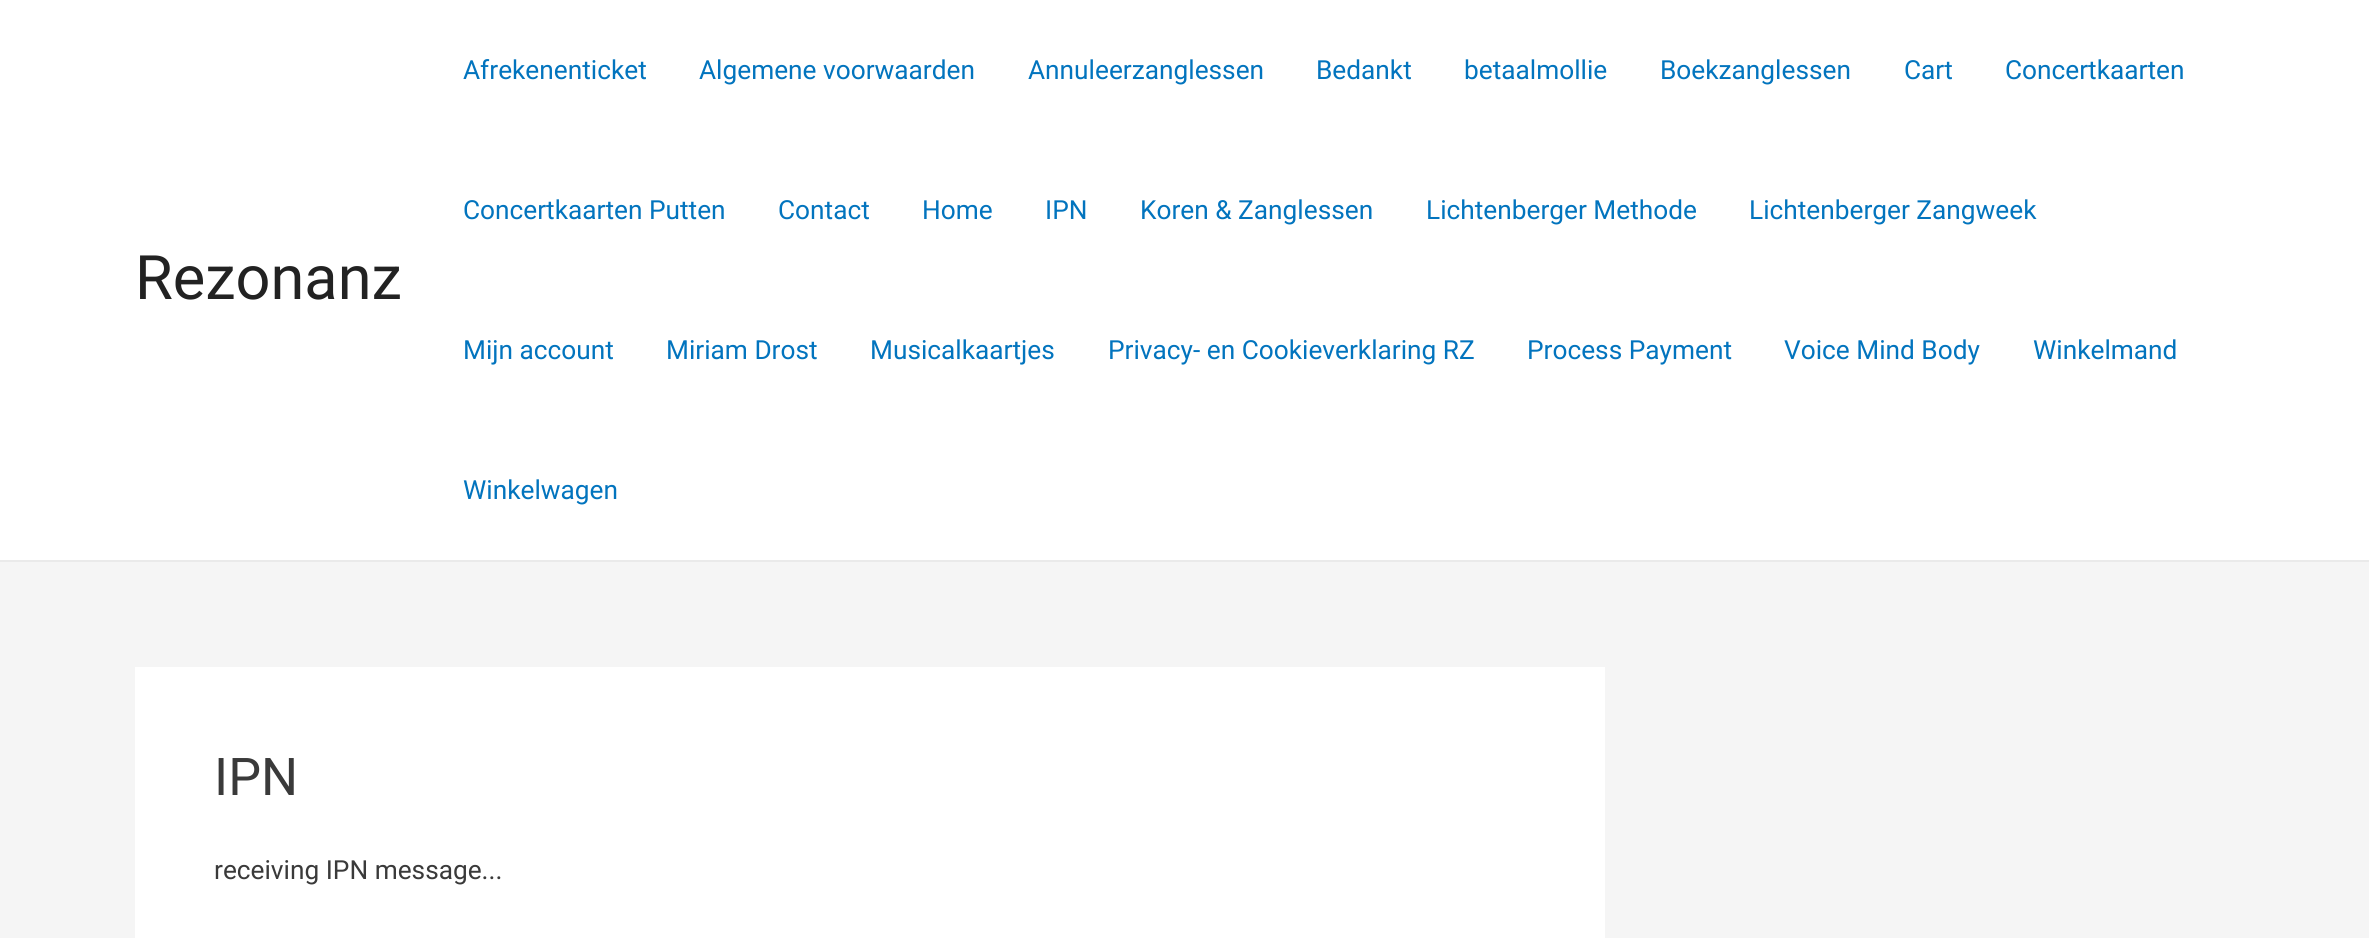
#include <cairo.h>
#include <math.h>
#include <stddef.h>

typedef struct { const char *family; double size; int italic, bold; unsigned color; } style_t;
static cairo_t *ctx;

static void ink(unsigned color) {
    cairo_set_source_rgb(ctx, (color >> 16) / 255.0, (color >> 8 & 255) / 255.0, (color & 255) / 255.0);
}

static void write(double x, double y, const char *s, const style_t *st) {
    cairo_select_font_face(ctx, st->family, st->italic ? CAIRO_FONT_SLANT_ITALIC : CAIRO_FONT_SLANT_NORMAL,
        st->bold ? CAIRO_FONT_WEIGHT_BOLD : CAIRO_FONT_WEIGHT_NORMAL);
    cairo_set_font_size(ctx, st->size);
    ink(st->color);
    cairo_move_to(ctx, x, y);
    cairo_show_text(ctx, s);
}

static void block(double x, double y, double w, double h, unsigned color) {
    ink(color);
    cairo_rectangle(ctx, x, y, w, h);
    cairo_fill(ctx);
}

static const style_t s1 = {"Roboto", 61.25, 0, 0, 0x222222};
static const style_t s2 = {"Roboto", 26.25, 0, 0, 0x0274be};
static const style_t s3 = {"Roboto", 52, 0, 0, 0x3a3a3a};
static const style_t s4 = {"Roboto", 26.25, 0, 0, 0x3a3a3a};

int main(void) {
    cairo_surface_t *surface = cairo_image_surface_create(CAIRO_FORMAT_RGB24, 2369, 938);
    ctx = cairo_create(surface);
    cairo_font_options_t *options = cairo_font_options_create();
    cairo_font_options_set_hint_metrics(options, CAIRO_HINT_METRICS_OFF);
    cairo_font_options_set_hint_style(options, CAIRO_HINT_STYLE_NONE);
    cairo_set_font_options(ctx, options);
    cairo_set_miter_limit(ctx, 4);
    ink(0xf5f5f5);
    cairo_paint(ctx);
    block(0, 0, 2369, 560, 0xffffff);
    block(0, 560, 2369, 2, 0xeaeaea);
    write(135, 299, "Rezonanz", &s1);
    write(463, 79, "Afrekenenticket", &s2);
    write(699, 79, "Algemene voorwaarden", &s2);
    write(1028, 79, "Annuleerzanglessen", &s2);
    write(1316, 79, "Bedankt", &s2);
    write(1464, 79, "betaalmollie", &s2);
    write(1660, 79, "Boekzanglessen", &s2);
    write(1904, 79, "Cart", &s2);
    write(2005, 79, "Concertkaarten", &s2);
    write(463, 219, "Concertkaarten Putten", &s2);
    write(778, 219, "Contact", &s2);
    write(922, 219, "Home", &s2);
    write(1045, 219, "IPN", &s2);
    write(1140, 219, "Koren & Zanglessen", &s2);
    write(1426, 219, "Lichtenberger Methode", &s2);
    write(1749, 219, "Lichtenberger Zangweek", &s2);
    write(463, 359, "Mijn account", &s2);
    write(666, 359, "Miriam Drost", &s2);
    write(870, 359, "Musicalkaartjes", &s2);
    write(1108, 359, "Privacy- en Cookieverklaring RZ", &s2);
    write(1527, 359, "Process Payment", &s2);
    write(1784, 359, "Voice Mind Body", &s2);
    write(2033, 359, "Winkelmand", &s2);
    write(463, 499, "Winkelwagen", &s2);
    block(135, 667, 1470, 271, 0xffffff);
    write(214, 795, "IPN", &s3);
    write(214, 879, "receiving IPN message...", &s4);
    cairo_surface_write_to_png(surface, "screenshot.png");
    cairo_font_options_destroy(options);
    cairo_destroy(ctx);
    cairo_surface_destroy(surface);
    return 0;
}
